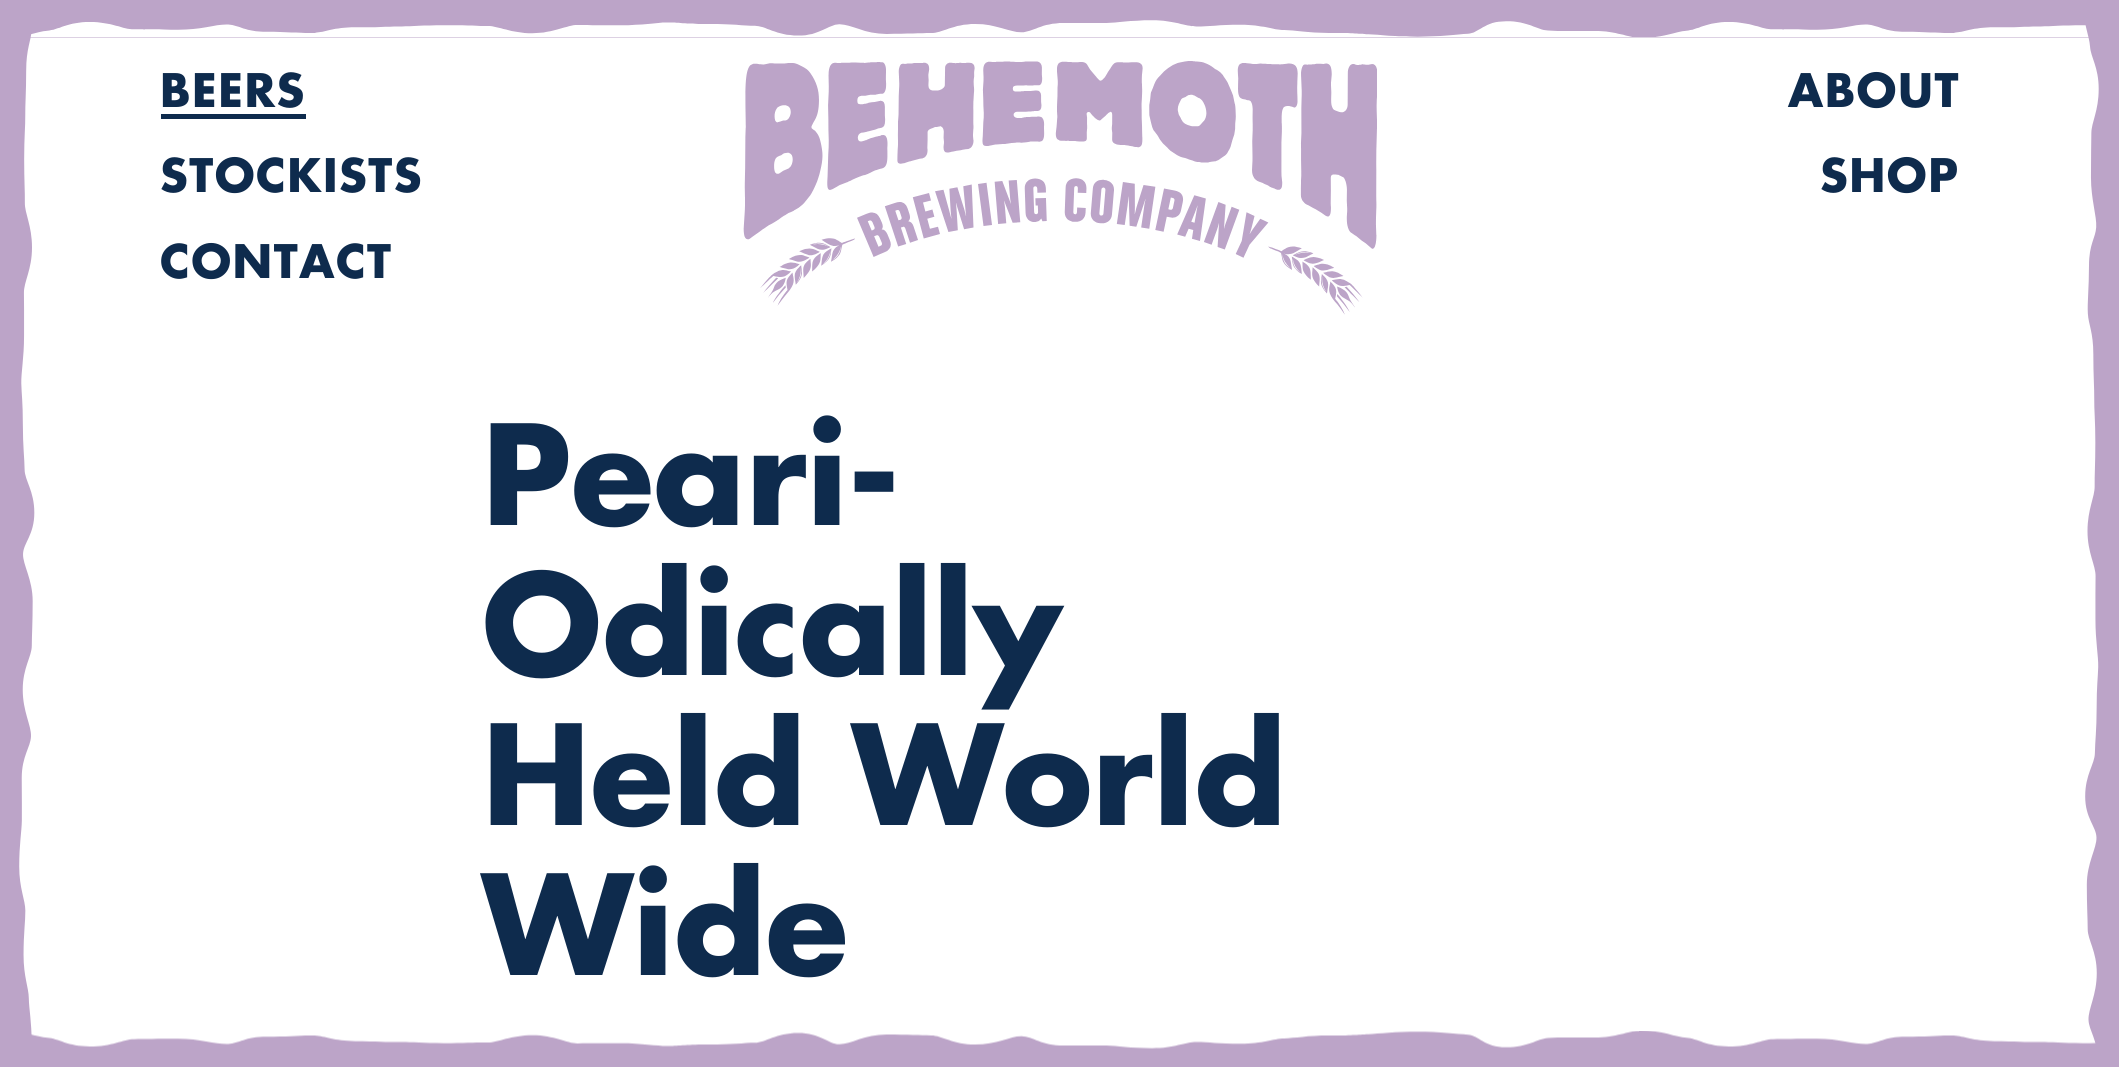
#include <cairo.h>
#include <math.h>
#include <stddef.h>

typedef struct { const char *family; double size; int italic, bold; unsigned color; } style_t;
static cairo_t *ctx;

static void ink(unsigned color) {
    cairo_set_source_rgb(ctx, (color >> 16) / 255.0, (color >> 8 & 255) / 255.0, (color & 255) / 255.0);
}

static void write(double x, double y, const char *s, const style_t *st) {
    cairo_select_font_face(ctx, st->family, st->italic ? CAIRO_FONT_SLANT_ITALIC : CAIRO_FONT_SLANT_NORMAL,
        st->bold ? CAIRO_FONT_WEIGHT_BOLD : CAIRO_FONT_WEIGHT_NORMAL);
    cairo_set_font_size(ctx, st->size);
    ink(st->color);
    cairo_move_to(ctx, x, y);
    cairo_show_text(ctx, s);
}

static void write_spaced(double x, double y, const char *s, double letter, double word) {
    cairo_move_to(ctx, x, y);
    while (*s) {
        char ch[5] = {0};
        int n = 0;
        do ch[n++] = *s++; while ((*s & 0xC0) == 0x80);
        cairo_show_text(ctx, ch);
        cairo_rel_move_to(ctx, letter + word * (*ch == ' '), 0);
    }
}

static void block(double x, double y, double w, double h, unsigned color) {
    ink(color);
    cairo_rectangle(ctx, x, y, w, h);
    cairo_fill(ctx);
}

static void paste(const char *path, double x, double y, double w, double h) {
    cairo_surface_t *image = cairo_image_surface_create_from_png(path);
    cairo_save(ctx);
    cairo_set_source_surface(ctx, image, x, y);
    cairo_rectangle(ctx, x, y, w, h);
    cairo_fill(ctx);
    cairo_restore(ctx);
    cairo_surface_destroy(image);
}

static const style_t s1 = {"Futura", 135, 0, 1, 0x0e2b4d};

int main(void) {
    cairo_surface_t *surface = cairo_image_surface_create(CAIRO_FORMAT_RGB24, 2119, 1067);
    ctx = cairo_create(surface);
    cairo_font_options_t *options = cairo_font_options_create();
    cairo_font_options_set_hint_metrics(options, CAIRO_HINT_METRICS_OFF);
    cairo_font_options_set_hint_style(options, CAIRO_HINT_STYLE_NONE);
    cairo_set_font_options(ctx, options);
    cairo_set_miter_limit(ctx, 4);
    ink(0xffffff);
    cairo_paint(ctx);
    paste("pic5.png", 0, 1031, 2119, 36);
    paste("pic1.png", 0, 0, 35, 1035);
    paste("pic3.png", 2085, 0, 34, 1044);
    paste("pic2.png", 30, 0, 2059, 38);
    paste("pic4.png", 743, 61, 634, 254);
    cairo_select_font_face(ctx, "Futura", CAIRO_FONT_SLANT_NORMAL, CAIRO_FONT_WEIGHT_BOLD);
    cairo_set_font_size(ctx, 45);
    ink(0x0e2b4d);
    write_spaced(160, 107, "BEERS", 1.5, 0);
    block(161, 114, 145, 5, 0x0e2b4d);
    write_spaced(1788, 107, "ABOUT", 1.5, 0);
    write_spaced(160, 192, "STOCKISTS", 1.5, 0);
    write_spaced(1820, 192, "SHOP", 1.5, 0);
    write_spaced(160, 278, "CONTACT", 1.5, 0);
    write(482, 525, "Peari-", &s1);
    write(482, 675, "Odically", &s1);
    write(482, 825, "Held World", &s1);
    write(482, 975, "Wide", &s1);
    cairo_surface_write_to_png(surface, "screenshot.png");
    cairo_font_options_destroy(options);
    cairo_destroy(ctx);
    cairo_surface_destroy(surface);
    return 0;
}
